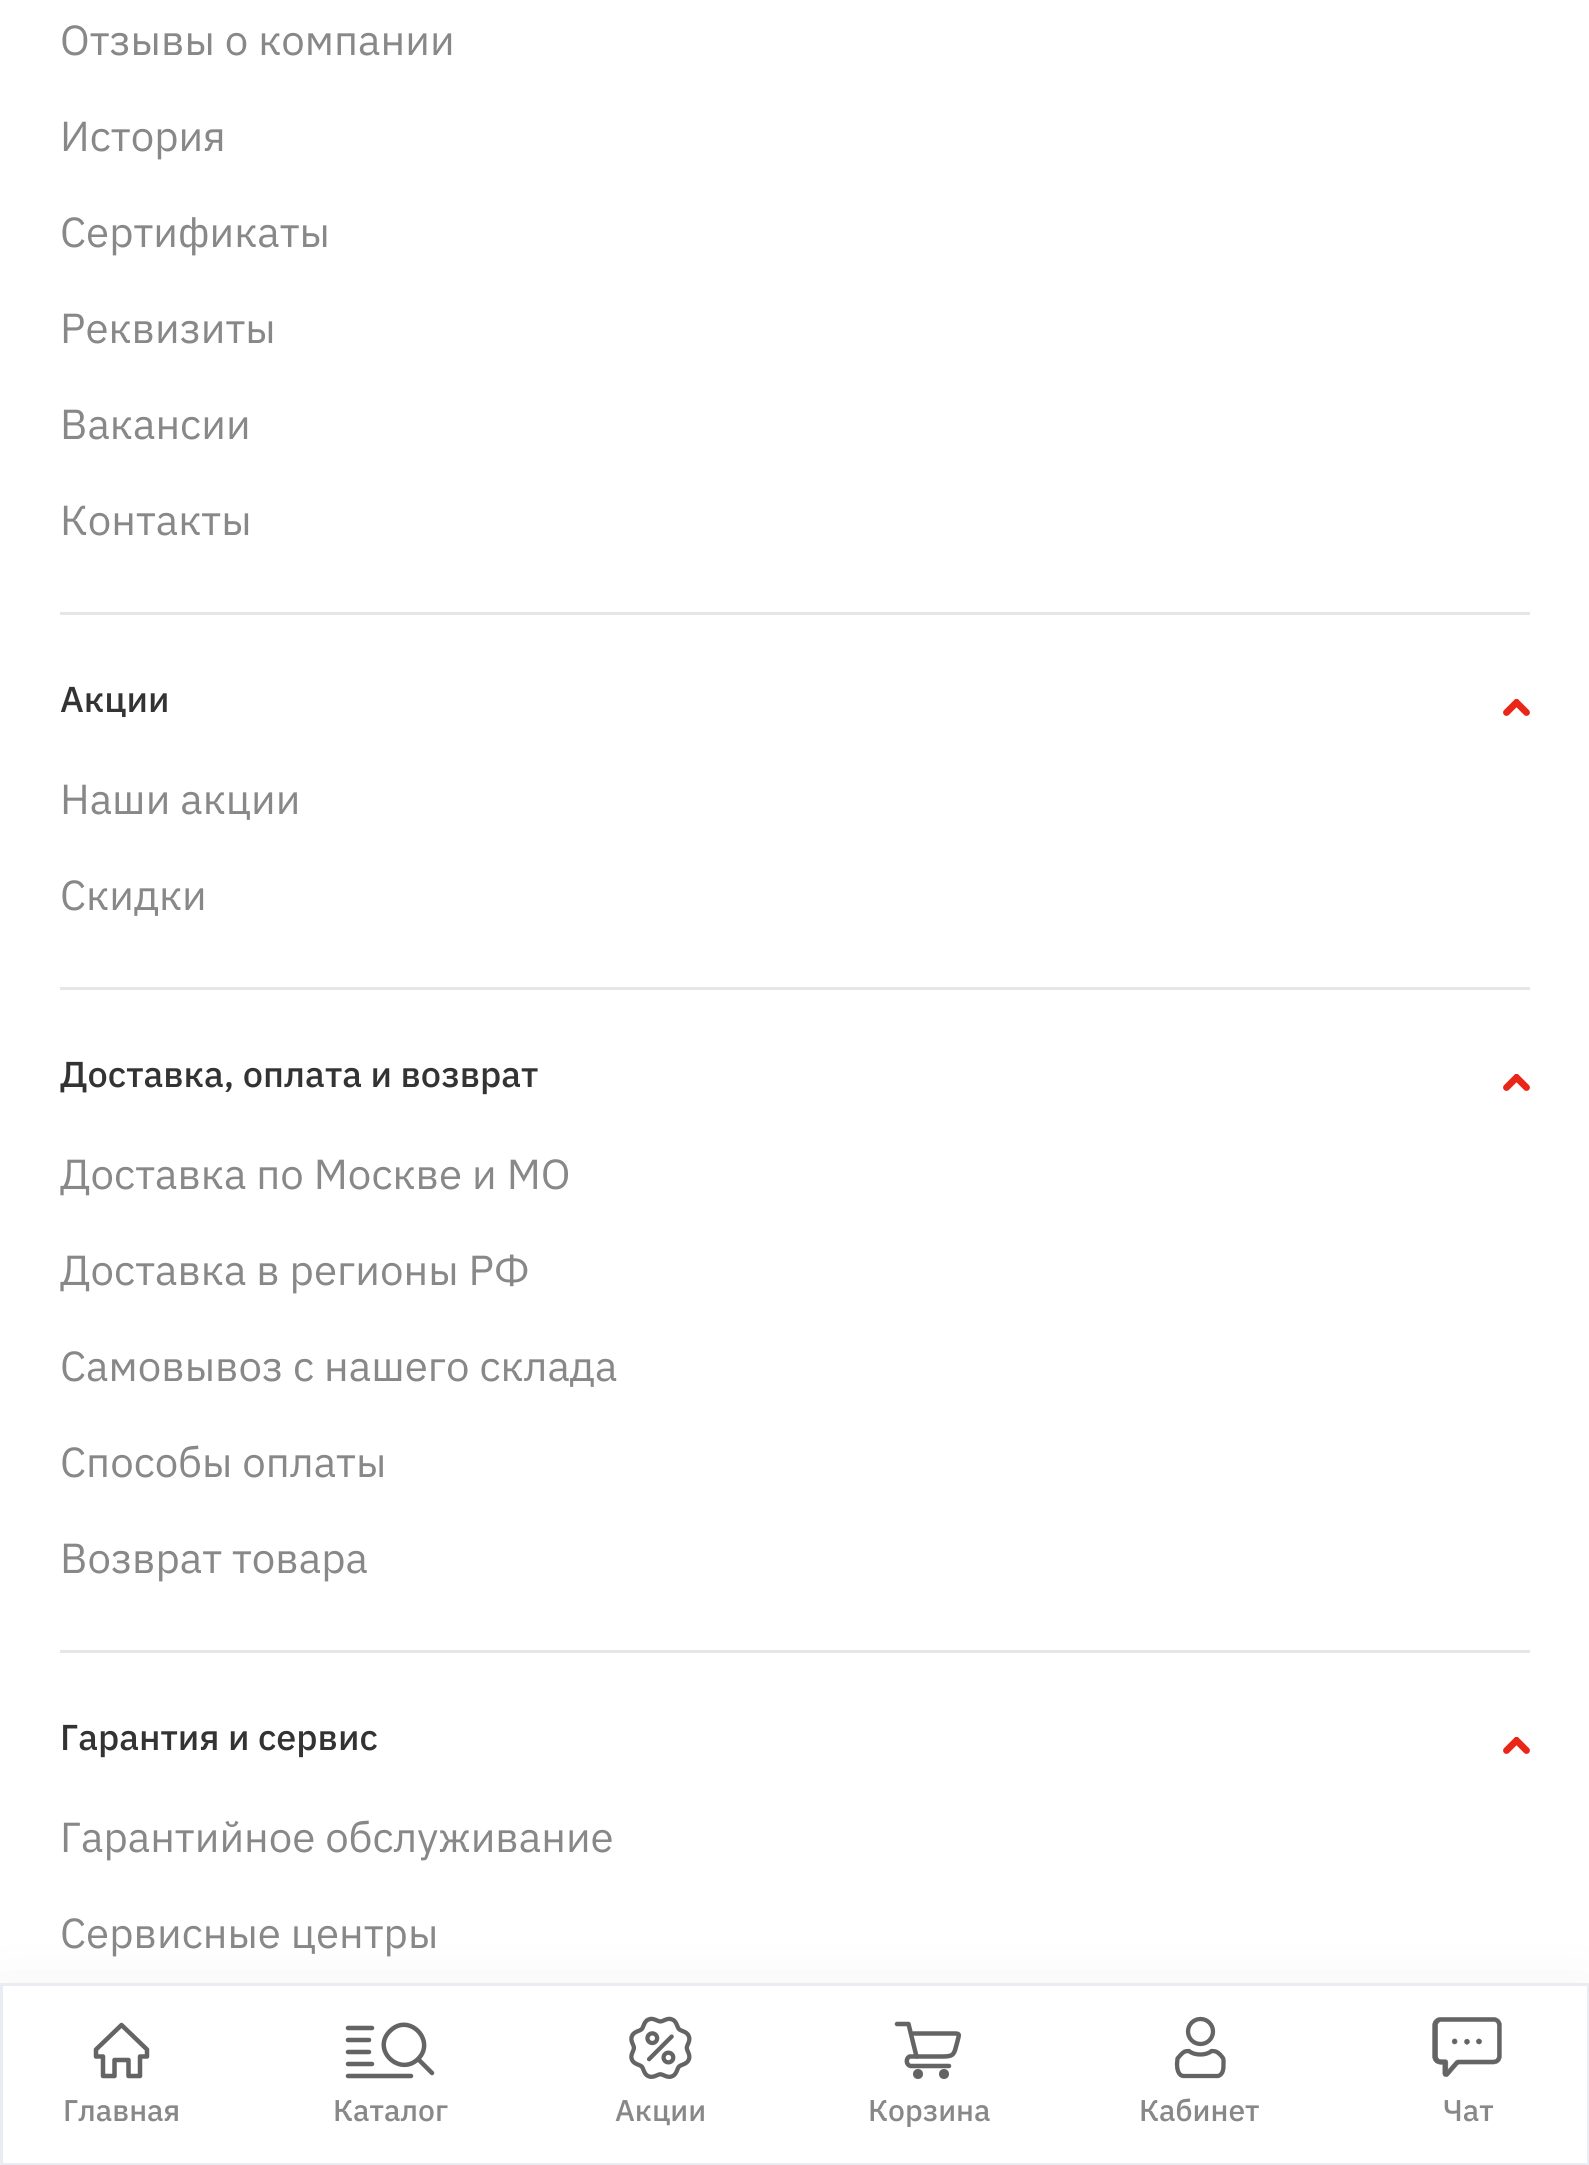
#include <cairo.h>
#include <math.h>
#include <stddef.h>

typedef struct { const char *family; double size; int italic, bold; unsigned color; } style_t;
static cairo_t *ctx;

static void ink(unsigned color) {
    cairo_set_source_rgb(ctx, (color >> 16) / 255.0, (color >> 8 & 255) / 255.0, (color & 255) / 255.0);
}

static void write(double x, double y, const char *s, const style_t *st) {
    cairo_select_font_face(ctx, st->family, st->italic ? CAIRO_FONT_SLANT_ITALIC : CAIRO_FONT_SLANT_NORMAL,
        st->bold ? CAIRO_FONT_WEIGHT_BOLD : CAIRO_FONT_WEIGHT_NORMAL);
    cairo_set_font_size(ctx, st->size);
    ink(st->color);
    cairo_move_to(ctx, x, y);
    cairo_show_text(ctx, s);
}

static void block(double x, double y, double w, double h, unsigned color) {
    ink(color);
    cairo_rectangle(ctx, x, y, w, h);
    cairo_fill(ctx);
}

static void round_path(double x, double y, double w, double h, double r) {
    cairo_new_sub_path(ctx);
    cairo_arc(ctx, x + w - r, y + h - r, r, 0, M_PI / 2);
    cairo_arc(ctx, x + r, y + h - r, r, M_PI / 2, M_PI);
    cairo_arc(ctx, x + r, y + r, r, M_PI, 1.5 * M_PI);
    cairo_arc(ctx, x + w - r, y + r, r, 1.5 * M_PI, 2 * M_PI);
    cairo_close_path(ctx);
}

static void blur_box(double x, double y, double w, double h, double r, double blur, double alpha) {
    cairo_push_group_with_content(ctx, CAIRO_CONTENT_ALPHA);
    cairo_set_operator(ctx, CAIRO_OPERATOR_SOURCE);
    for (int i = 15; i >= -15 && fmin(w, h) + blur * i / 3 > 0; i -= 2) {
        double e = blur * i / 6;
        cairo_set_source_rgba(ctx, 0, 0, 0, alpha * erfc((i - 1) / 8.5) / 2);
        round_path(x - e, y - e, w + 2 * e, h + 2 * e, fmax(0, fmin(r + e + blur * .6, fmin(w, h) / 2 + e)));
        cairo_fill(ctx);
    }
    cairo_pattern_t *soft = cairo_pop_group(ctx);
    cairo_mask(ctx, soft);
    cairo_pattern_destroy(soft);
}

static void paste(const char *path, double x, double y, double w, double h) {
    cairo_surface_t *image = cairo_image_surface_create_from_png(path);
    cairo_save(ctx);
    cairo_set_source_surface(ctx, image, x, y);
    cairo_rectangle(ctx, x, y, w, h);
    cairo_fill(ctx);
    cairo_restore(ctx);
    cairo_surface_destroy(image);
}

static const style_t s1 = {"IBM Plex Sans", 42, 0, 0, 0x888888};
static const style_t s2 = {"IBM Plex Sans Medium", 36, 0, 0, 0x333333};
static const style_t s3 = {"IBM Plex Sans Medium", 30, 0, 0, 0x888888};

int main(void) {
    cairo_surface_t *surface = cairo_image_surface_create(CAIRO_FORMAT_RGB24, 1589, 2165);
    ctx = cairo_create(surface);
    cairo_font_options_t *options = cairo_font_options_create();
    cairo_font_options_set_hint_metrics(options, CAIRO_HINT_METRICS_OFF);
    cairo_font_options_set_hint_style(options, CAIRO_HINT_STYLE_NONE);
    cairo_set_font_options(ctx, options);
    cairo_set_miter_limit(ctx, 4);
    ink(0xffffff);
    cairo_paint(ctx);
    block(60, 612, 1470, 3, 0xe6e6e6);
    write(60, 55, "Отзывы о компании", &s1);
    write(60, 151, "История", &s1);
    write(60, 247, "Сертификаты", &s1);
    write(60, 343, "Реквизиты", &s1);
    write(60, 439, "Вакансии", &s1);
    write(60, 535, "Контакты", &s1);
    block(60, 987, 1470, 3, 0xe6e6e6);
    write(60, 712, "Акции", &s2);
    cairo_save(ctx);
    cairo_rectangle(ctx, 1503, 699, 27, 18);
    cairo_clip(ctx);
    cairo_new_path(ctx);
    cairo_move_to(ctx, 1526.5, 712.5);
    cairo_line_to(ctx, 1516.5, 702.5);
    cairo_line_to(ctx, 1506.5, 712.5);
    ink(0xe92617);
    cairo_set_line_width(ctx, 6.8);
    cairo_set_line_cap(ctx, CAIRO_LINE_CAP_ROUND);
    cairo_stroke(ctx);
    cairo_restore(ctx);
    write(60, 814, "Наши акции", &s1);
    write(60, 910, "Скидки", &s1);
    block(60, 1650, 1470, 3, 0xe6e6e6);
    write(60, 1087, "Доставка, оплата и возврат", &s2);
    cairo_save(ctx);
    cairo_rectangle(ctx, 1503, 1074, 27, 18);
    cairo_clip(ctx);
    cairo_new_path(ctx);
    cairo_move_to(ctx, 1526.5, 1087.5);
    cairo_line_to(ctx, 1516.5, 1077.5);
    cairo_line_to(ctx, 1506.5, 1087.5);
    ink(0xe92617);
    cairo_set_line_width(ctx, 6.8);
    cairo_set_line_cap(ctx, CAIRO_LINE_CAP_ROUND);
    cairo_stroke(ctx);
    cairo_restore(ctx);
    write(60, 1189, "Доставка по Москве и МО", &s1);
    write(60, 1285, "Доставка в регионы РФ", &s1);
    write(60, 1381, "Самовывоз с нашего склада", &s1);
    write(60, 1477, "Способы оплаты", &s1);
    write(60, 1573, "Возврат товара", &s1);
    write(60, 1750, "Гарантия и сервис", &s2);
    cairo_save(ctx);
    cairo_rectangle(ctx, 1503, 1737, 27, 18);
    cairo_clip(ctx);
    cairo_new_path(ctx);
    cairo_move_to(ctx, 1526.5, 1750.5);
    cairo_line_to(ctx, 1516.5, 1740.5);
    cairo_line_to(ctx, 1506.5, 1750.5);
    ink(0xe92617);
    cairo_set_line_width(ctx, 6.8);
    cairo_set_line_cap(ctx, CAIRO_LINE_CAP_ROUND);
    cairo_stroke(ctx);
    cairo_restore(ctx);
    write(60, 1852, "Гарантийное обслуживание", &s1);
    write(60, 1948, "Сервисные центры", &s1);
    ink(0x000000);
    blur_box(0, 2013, 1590, 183, 0, 37.5, 0.1);
    ink(0xffffff);
    cairo_rectangle(ctx, 1.5, 1984.5, 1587, 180);
    cairo_fill_preserve(ctx);
    ink(0xe9edf3);
    cairo_set_line_width(ctx, 3);
    cairo_stroke(ctx);
    cairo_new_path(ctx);
    cairo_move_to(ctx, 103, 2076);
    cairo_line_to(ctx, 103, 2056.5);
    cairo_line_to(ctx, 96, 2056.5);
    cairo_line_to(ctx, 96, 2049.5);
    cairo_line_to(ctx, 121.5, 2025);
    cairo_line_to(ctx, 147, 2049.5);
    cairo_line_to(ctx, 147, 2056.5);
    cairo_line_to(ctx, 140, 2056.5);
    cairo_line_to(ctx, 140, 2076);
    cairo_line_to(ctx, 128.5, 2076);
    cairo_line_to(ctx, 128.5, 2060);
    cairo_line_to(ctx, 114.5, 2060);
    cairo_line_to(ctx, 114.5, 2076);
    cairo_close_path(ctx);
    ink(0x646464);
    cairo_set_line_width(ctx, 4.5);
    cairo_set_line_join(ctx, CAIRO_LINE_JOIN_ROUND);
    cairo_stroke(ctx);
    write(63, 2121, "Главная", &s3);
    cairo_new_path(ctx);
    cairo_move_to(ctx, 418, 2059);
    cairo_curve_to(ctx, 436.5, 2041, 409, 2012, 390, 2031);
    cairo_curve_to(ctx, 371, 2049.5, 399.5, 2077, 418, 2059);
    cairo_close_path(ctx);
    cairo_move_to(ctx, 418, 2059);
    cairo_line_to(ctx, 432, 2073);
    ink(0x646464);
    cairo_set_line_cap(ctx, CAIRO_LINE_CAP_ROUND);
    cairo_stroke(ctx);
    cairo_new_path(ctx);
    cairo_move_to(ctx, 348, 2028);
    cairo_line_to(ctx, 372, 2028);
    cairo_move_to(ctx, 348, 2040);
    cairo_line_to(ctx, 369, 2040);
    cairo_move_to(ctx, 348, 2052);
    cairo_line_to(ctx, 369, 2052);
    cairo_move_to(ctx, 348, 2064);
    cairo_line_to(ctx, 372, 2064);
    cairo_stroke(ctx);
    cairo_new_path(ctx);
    cairo_move_to(ctx, 348, 2076);
    cairo_line_to(ctx, 411, 2076);
    cairo_stroke(ctx);
    write(333, 2121, "Каталог", &s3);
    paste("pic1.png", 629, 2016, 63, 63);
    write(615, 2121, "Акции", &s3);
    cairo_new_path(ctx);
    cairo_move_to(ctx, 917, 2056.5);
    cairo_line_to(ctx, 942.5, 2056.5);
    cairo_curve_to(ctx, 954.5, 2056.5, 954, 2054, 957, 2043);
    cairo_curve_to(ctx, 959.5, 2032.5, 961, 2033.5, 949.5, 2033.5);
    cairo_line_to(ctx, 913.5, 2033.5);
    ink(0x646464);
    cairo_stroke(ctx);
    cairo_new_path(ctx);
    cairo_move_to(ctx, 897, 2024);
    cairo_line_to(ctx, 908.5, 2024);
    cairo_line_to(ctx, 916.5, 2056.5);
    cairo_line_to(ctx, 909.5, 2056.5);
    cairo_curve_to(ctx, 905.5, 2058.5, 906, 2065, 910.5, 2066);
    cairo_line_to(ctx, 949, 2066);
    cairo_stroke(ctx);
    cairo_arc(ctx, 918, 2074, 5, 0, 2 * M_PI);
    cairo_fill(ctx);
    cairo_arc(ctx, 944, 2074, 5, 0, 2 * M_PI);
    cairo_fill(ctx);
    write(868, 2121, "Корзина", &s3);
    cairo_new_path(ctx);
    cairo_arc(ctx, 1200.5, 2031.5, 12.5, 0, 2 * M_PI);
    ink(0x646464);
    cairo_set_line_width(ctx, 4.3);
    cairo_set_line_cap(ctx, CAIRO_LINE_CAP_BUTT);
    cairo_set_line_join(ctx, CAIRO_LINE_JOIN_MITER);
    cairo_stroke(ctx);
    cairo_new_path(ctx);
    cairo_move_to(ctx, 1200.5, 2054.5);
    cairo_curve_to(ctx, 1204.5, 2054.5, 1208.5, 2053.5, 1211.5, 2051);
    cairo_curve_to(ctx, 1216, 2051, 1217.5, 2052, 1220.5, 2055);
    cairo_curve_to(ctx, 1224, 2059, 1223.5, 2058.5, 1223.5, 2064);
    cairo_curve_to(ctx, 1223.5, 2068, 1223.5, 2074.5, 1218, 2076);
    cairo_line_to(ctx, 1184, 2076);
    cairo_curve_to(ctx, 1178, 2076, 1177, 2068.5, 1177, 2064);
    cairo_line_to(ctx, 1177.5, 2058.5);
    cairo_line_to(ctx, 1180.5, 2055);
    cairo_curve_to(ctx, 1183.5, 2052, 1184.5, 2051, 1189, 2051);
    cairo_curve_to(ctx, 1192, 2053.5, 1196, 2054.5, 1200.5, 2054.5);
    cairo_close_path(ctx);
    cairo_set_line_join(ctx, CAIRO_LINE_JOIN_ROUND);
    cairo_stroke(ctx);
    write(1139, 2121, "Кабинет", &s3);
    paste("pic2.png", 1432, 2017, 70, 60);
    write(1443, 2121, "Чат", &s3);
    cairo_surface_write_to_png(surface, "screenshot.png");
    cairo_font_options_destroy(options);
    cairo_destroy(ctx);
    cairo_surface_destroy(surface);
    return 0;
}
